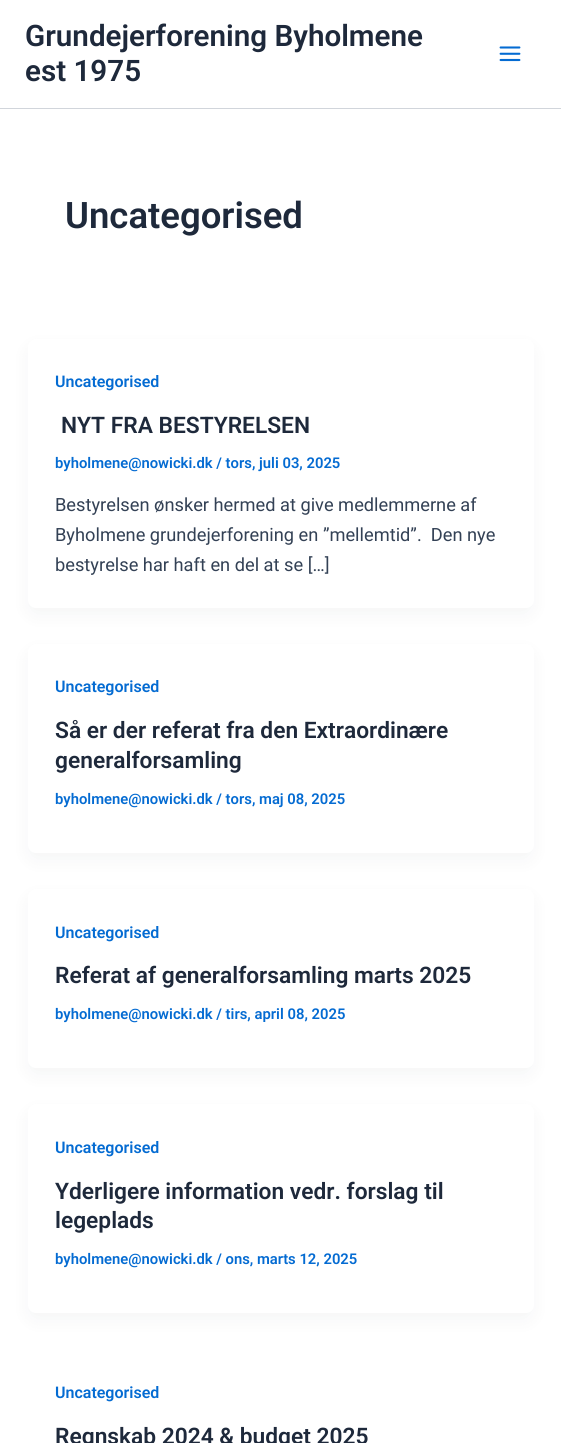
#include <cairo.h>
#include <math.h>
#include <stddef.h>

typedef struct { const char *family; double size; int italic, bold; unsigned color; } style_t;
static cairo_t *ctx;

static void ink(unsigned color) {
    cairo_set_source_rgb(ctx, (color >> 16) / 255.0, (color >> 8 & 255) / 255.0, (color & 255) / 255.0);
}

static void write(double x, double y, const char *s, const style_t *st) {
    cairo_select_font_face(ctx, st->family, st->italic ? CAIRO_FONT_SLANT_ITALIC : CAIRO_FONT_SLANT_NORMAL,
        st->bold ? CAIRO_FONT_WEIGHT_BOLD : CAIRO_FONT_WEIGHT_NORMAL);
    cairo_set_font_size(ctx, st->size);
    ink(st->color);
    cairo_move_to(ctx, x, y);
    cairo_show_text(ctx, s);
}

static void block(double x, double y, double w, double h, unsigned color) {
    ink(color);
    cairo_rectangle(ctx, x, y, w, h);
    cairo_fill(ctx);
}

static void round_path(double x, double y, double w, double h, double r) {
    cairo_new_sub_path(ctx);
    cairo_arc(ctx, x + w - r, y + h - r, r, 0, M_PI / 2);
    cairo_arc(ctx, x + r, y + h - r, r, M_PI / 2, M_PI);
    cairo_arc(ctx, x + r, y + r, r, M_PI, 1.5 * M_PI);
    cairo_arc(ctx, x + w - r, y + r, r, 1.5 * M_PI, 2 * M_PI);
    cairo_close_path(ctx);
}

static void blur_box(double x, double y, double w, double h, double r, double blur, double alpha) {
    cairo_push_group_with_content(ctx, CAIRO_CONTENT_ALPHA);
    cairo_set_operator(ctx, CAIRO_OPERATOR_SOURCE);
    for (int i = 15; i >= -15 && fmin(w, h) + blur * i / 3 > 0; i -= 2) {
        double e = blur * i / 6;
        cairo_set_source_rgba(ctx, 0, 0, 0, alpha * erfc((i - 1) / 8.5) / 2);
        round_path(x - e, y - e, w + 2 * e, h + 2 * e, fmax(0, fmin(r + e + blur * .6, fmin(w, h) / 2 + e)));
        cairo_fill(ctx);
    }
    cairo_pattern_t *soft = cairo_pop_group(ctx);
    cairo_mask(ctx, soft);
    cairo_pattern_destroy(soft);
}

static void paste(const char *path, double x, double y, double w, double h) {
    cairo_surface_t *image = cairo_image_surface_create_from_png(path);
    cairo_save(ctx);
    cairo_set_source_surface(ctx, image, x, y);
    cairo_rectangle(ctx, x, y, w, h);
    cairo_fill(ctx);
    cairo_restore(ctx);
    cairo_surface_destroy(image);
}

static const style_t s1 = {"Roboto SemiBold", 29.6, 0, 0, 0x1e293b};
static const style_t s2 = {"Roboto SemiBold", 36.5, 0, 0, 0x1e293b};
static const style_t s3 = {"Roboto SemiBold", 16, 0, 0, 0x046bd2};
static const style_t s4 = {"Roboto SemiBold", 22.75, 0, 0, 0x1e293b};
static const style_t s5 = {"Roboto SemiBold", 14.8, 0, 0, 0x046bd2};
static const style_t s6 = {"Roboto", 18.25, 0, 0, 0x334155};

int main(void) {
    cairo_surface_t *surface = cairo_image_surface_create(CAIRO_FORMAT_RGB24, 561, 1443);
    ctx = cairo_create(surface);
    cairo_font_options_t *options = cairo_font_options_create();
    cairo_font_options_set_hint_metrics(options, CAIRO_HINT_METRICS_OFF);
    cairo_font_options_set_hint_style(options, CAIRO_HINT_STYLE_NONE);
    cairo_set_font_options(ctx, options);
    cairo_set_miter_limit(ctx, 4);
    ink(0xffffff);
    cairo_paint(ctx);
    block(0, 108, 561, 1, 0xd1d5db);
    write(25, 46, "Grundejerforening Byholmene", &s1);
    write(25, 81, "est 1975", &s1);
    paste("pic1.png", 499, 46, 22, 16);
    write(65, 228, "Uncategorised", &s2);
    ink(0x101828);
    blur_box(30, 349, 501, 264, 5, 9.5, 0.05);
    ink(0xffffff);
    round_path(28, 339, 506, 269, 8);
    cairo_fill(ctx);
    write(55, 387, "Uncategorised", &s3);
    write(61, 433, "NYT FRA BESTYRELSEN", &s4);
    write(55, 468, "byholmene@nowicki.dk / tors, juli 03, 2025", &s5);
    write(55, 511, "Bestyrelsen ønsker hermed at give medlemmerne af", &s6);
    write(55, 541, "Byholmene grundejerforening en ”mellemtid”.  Den nye", &s6);
    write(55, 571, "bestyrelse har haft en del at se […]", &s6);
    ink(0x101828);
    blur_box(30, 654, 501, 204, 5, 9.5, 0.05);
    ink(0xffffff);
    round_path(28, 644, 506, 209, 8);
    cairo_fill(ctx);
    write(55, 692, "Uncategorised", &s3);
    write(55, 738, "Så er der referat fra den Extraordinære", &s4);
    write(55, 768, "generalforsamling", &s4);
    write(55, 804, "byholmene@nowicki.dk / tors, maj 08, 2025", &s5);
    ink(0x101828);
    blur_box(30, 899, 501, 174, 5, 9.5, 0.05);
    ink(0xffffff);
    round_path(28, 889, 506, 179, 8);
    cairo_fill(ctx);
    write(55, 938, "Uncategorised", &s3);
    write(55, 983, "Referat af generalforsamling marts 2025", &s4);
    write(55, 1019, "byholmene@nowicki.dk / tirs, april 08, 2025", &s5);
    ink(0x101828);
    blur_box(30, 1114, 501, 204, 5, 9.5, 0.05);
    ink(0xffffff);
    round_path(28, 1104, 506, 209, 8);
    cairo_fill(ctx);
    write(55, 1153, "Uncategorised", &s3);
    write(55, 1199, "Yderligere information vedr. forslag til", &s4);
    write(55, 1228, "legeplads", &s4);
    write(55, 1264, "byholmene@nowicki.dk / ons, marts 12, 2025", &s5);
    write(55, 1398, "Uncategorised", &s3);
    write(55, 1444, "Regnskab 2024 & budget 2025", &s4);
    cairo_surface_write_to_png(surface, "screenshot.png");
    cairo_font_options_destroy(options);
    cairo_destroy(ctx);
    cairo_surface_destroy(surface);
    return 0;
}
